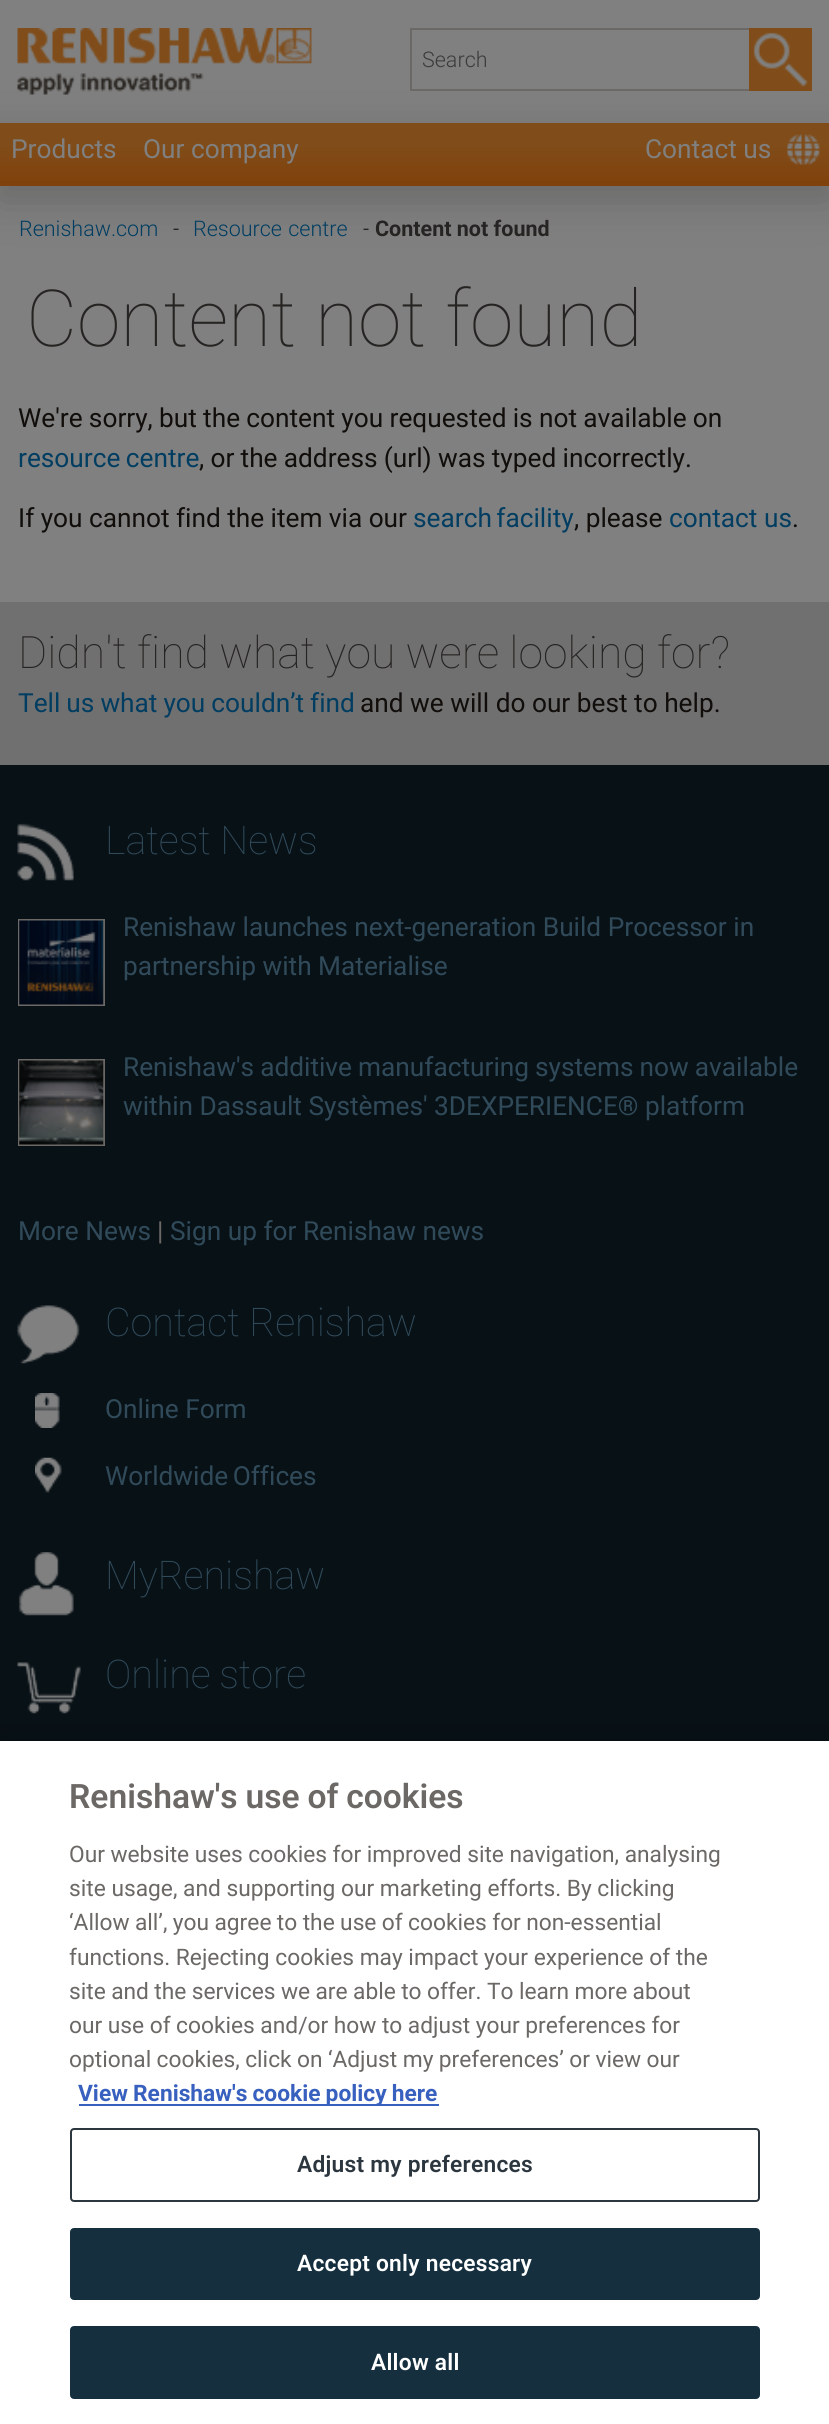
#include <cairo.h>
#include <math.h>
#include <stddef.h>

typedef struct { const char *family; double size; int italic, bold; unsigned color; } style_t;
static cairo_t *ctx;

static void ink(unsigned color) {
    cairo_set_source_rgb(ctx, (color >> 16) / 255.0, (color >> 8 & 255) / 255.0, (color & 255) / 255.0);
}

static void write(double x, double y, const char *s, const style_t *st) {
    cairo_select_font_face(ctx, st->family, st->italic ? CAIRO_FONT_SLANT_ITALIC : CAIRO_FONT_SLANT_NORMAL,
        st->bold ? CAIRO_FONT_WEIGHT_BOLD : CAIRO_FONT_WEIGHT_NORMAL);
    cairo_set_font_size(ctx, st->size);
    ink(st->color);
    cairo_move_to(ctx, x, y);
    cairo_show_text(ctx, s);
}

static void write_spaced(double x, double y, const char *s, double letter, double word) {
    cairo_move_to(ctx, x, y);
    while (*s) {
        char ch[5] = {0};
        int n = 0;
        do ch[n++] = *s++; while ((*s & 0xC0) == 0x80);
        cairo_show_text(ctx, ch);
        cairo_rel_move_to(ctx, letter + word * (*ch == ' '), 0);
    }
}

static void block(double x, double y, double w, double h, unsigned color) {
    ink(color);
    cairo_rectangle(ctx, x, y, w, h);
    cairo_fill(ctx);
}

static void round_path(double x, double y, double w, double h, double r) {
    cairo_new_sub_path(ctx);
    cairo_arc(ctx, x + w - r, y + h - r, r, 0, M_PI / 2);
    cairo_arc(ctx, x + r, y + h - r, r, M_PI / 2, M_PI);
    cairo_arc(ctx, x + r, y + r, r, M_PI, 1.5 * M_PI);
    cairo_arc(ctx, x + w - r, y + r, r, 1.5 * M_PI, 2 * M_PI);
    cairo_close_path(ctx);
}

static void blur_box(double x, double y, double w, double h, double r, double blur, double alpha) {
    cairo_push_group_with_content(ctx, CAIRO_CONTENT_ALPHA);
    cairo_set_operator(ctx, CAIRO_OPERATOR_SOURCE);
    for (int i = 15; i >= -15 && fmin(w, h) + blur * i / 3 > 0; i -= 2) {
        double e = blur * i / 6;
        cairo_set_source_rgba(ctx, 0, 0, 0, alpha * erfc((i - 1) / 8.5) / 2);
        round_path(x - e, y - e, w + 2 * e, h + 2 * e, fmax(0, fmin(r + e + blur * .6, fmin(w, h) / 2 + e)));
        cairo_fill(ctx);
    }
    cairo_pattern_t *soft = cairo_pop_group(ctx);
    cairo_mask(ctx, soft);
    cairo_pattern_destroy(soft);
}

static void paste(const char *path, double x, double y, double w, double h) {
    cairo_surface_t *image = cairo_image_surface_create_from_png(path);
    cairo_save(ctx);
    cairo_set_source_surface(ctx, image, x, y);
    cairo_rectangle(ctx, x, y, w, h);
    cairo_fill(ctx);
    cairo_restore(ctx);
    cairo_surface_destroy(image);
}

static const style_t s1 = {"Roboto Light", 21.5, 0, 0, 0x3b3b3b};
static const style_t s2 = {"Roboto", 26.25, 0, 0, 0x808080};
static const style_t s3 = {"Roboto Light", 21.5, 0, 0, 0x003d61};
static const style_t s4 = {"Roboto Light", 21.5, 0, 0, 0x110d0b};
static const style_t s5 = {"Roboto", 21.5, 0, 1, 0x262422};
static const style_t s6 = {"Roboto Thin", 78.75, 0, 0, 0x262422};
static const style_t s7 = {"Roboto", 26.25, 0, 0, 0x110d0b};
static const style_t s8 = {"Roboto", 26.25, 0, 0, 0x003d61};
static const style_t s9 = {"Roboto Thin", 39.5, 0, 0, 0x304a5a};
static const style_t s10 = {"Roboto", 26.25, 0, 0, 0x304a5a};
static const style_t s11 = {"Roboto", 26.25, 0, 0, 0x6b6866};
static const style_t s12 = {"Roboto", 22.75, 0, 0, 0x6b6866};

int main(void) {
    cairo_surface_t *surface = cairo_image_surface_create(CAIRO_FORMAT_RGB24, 829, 2424);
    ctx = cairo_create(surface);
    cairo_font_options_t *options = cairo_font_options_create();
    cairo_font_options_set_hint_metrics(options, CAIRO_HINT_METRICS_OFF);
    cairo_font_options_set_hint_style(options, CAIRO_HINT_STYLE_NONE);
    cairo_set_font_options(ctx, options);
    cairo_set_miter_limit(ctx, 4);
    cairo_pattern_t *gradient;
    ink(0x808080);
    cairo_paint(ctx);
    ink(0x110d0b);
    blur_box(-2, 135, 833, 66, 0, 21, 0.2);
    paste("pic1.png", 17, 28, 295, 67);
    block(410, 28, 339, 2, 0x6b6866);
    block(410, 89, 339, 2, 0x6b6866);
    block(410, 28, 2, 63, 0x6b6866);
    write(422, 67, "Search", &s1);
    block(751, 30, 59, 59, 0x804d1a);
    paste("pic2.png", 753, 32, 55, 55);
    cairo_rectangle(ctx, 750, 29, 61, 61);
    cairo_stroke(ctx);
    gradient = cairo_pattern_create_linear(415, 122, 415, 186);
    cairo_pattern_add_color_stop_rgba(gradient, 0, 0.502, 0.302, 0.102, 1);
    cairo_pattern_add_color_stop_rgba(gradient, 0.3, 0.502, 0.302, 0.102, 1);
    cairo_pattern_add_color_stop_rgba(gradient, 1, 0.502, 0.255, 0.047, 1);
    cairo_set_source(ctx, gradient);
    cairo_pattern_destroy(gradient);
    cairo_rectangle(ctx, 0, 123, 829, 63);
    cairo_fill(ctx);
    write(11, 158, "Products", &s2);
    write(143, 158, "Our company", &s2);
    write(645, 158, "Contact us", &s2);
    paste("pic3.png", 787, 134, 33, 31);
    write(19, 236, "Renishaw.com", &s3);
    write(173, 236, "-", &s4);
    ink(0x003d61);
    write_spaced(193, 236, "Resource centre", 0, 1);
    write(363, 236, "-", &s4);
    write(375, 236, "Content not found", &s5);
    write(26, 346, "Content not found", &s6);
    cairo_select_font_face(ctx, "Roboto", CAIRO_FONT_SLANT_NORMAL, CAIRO_FONT_WEIGHT_NORMAL);
    cairo_set_font_size(ctx, 26.25);
    ink(0x110d0b);
    write_spaced(18, 427, "We're sorry, but the content you requested is not available on", 0, -0.25);
    ink(0x003d61);
    write_spaced(18, 467, "resource centre", 0, -1);
    ink(0x110d0b);
    write_spaced(199, 467, ", or the address (url) was typed incorrectly.", 0, -0.25);
    write_spaced(18, 527, "If you cannot find the item via our", 0, -0.1);
    ink(0x003d61);
    write_spaced(413, 527, "search facility", 0, -2);
    write(574, 527, ", please", &s7);
    write(669, 527, "contact us", &s8);
    write(792, 527, ".", &s7);
    block(0, 602, 829, 163, 0x707070);
    cairo_select_font_face(ctx, "Roboto Thin", CAIRO_FONT_SLANT_NORMAL, CAIRO_FONT_WEIGHT_NORMAL);
    cairo_set_font_size(ctx, 44.6);
    ink(0x262422);
    write_spaced(18, 668, "Didn't find what you were looking for?", 0, -0.5);
    cairo_select_font_face(ctx, "Roboto", CAIRO_FONT_SLANT_NORMAL, CAIRO_FONT_WEIGHT_NORMAL);
    cairo_set_font_size(ctx, 26.25);
    ink(0x003d61);
    write_spaced(18, 712, "Tell us what you couldn’t find", 0, -0.5);
    write(360, 712, "and we will do our best to help.", &s7);
    block(0, 765, 829, 976, 0x081116);
    paste("pic4.png", 17, 823, 57, 58);
    write(105, 854, "Latest News", &s9);
    cairo_rectangle(ctx, 19, 920, 85, 85);
    ink(0x6b6866);
    cairo_stroke(ctx);
    paste("pic5.png", 19, 920, 85, 85);
    write(123, 936, "Renishaw launches next-generation Build Processor in", &s10);
    write(123, 975, "partnership with Materialise", &s10);
    cairo_rectangle(ctx, 19, 1060, 85, 85);
    ink(0x6b6866);
    cairo_stroke(ctx);
    paste("pic6.png", 19, 1060, 85, 85);
    ink(0x304a5a);
    write_spaced(123, 1076, "Renishaw's additive manufacturing systems now available", 0, -0.5);
    write(123, 1115, "within Dassault Systèmes' 3DEXPERIENCE® platform", &s10);
    write(18, 1240, "More News", &s10);
    write(157, 1240, "|", &s11);
    write(170, 1240, "Sign up for Renishaw news", &s10);
    paste("pic7.png", 17, 1305, 63, 59);
    write(105, 1336, "Contact Renishaw", &s9);
    paste("pic8.png", 35, 1393, 25, 35);
    write(105, 1418, "Online Form", &s10);
    paste("pic9.png", 35, 1457, 27, 36);
    write_spaced(105, 1485, "Worldwide Offices", 0, -2);
    paste("pic10.png", 18, 1552, 56, 64);
    write(105, 1589, "MyRenishaw", &s9);
    paste("pic11.png", 17, 1662, 64, 52);
    write_spaced(105, 1688, "Online store", 0, -1);
    ink(0x000000);
    blur_box(0, 1741, 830, 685, 0, 16, 0.2);
    block(0, 1741, 829, 683, 0xffffff);
    cairo_select_font_face(ctx, "Roboto SemiBold", CAIRO_FONT_SLANT_NORMAL, CAIRO_FONT_WEIGHT_NORMAL);
    cairo_set_font_size(ctx, 33.6);
    ink(0x6b6866);
    write_spaced(69, 1808, "Renishaw's use of cookies", 0, -0.5);
    cairo_select_font_face(ctx, "Roboto", CAIRO_FONT_SLANT_NORMAL, CAIRO_FONT_WEIGHT_NORMAL);
    cairo_set_font_size(ctx, 22.75);
    write_spaced(69, 1862, "Our website uses cookies for improved site navigation, analysing", 0, -0.1);
    write(69, 1896, "site usage, and supporting our marketing efforts. By clicking", &s12);
    write_spaced(69, 1930, "‘Allow all’, you agree to the use of cookies for non-essential", 0, -0.25);
    write(69, 1965, "functions. Rejecting cookies may impact your experience of the", &s12);
    write_spaced(69, 1999, "site and the services we are able to offer. To learn more about", 0, -0.25);
    write_spaced(69, 2033, "our use of cookies and/or how to adjust your preferences for", 0, -0.1);
    write_spaced(69, 2067, "optional cookies, click on ‘Adjust my preferences’ or view our", 0, -0.25);
    block(79, 2104, 360, 2, 0x3860be);
    cairo_select_font_face(ctx, "Roboto", CAIRO_FONT_SLANT_NORMAL, CAIRO_FONT_WEIGHT_BOLD);
    write_spaced(78, 2101, "View Renishaw's cookie policy here", 0, -0.5);
    round_path(71, 2129, 688, 72, 3);
    ink(0x2c363f);
    cairo_stroke(ctx);
    cairo_select_font_face(ctx, "Roboto SemiBold", CAIRO_FONT_SLANT_NORMAL, CAIRO_FONT_WEIGHT_NORMAL);
    write_spaced(297, 2172, "Adjust my preferences", 0.25, 0);
    ink(0x152f3f);
    round_path(71, 2229, 688, 70, 3);
    cairo_fill_preserve(ctx);
    cairo_stroke(ctx);
    ink(0xffffff);
    write_spaced(297, 2271, "Accept only necessary", 0.25, 0);
    ink(0x152f3f);
    round_path(71, 2327, 688, 71, 3);
    cairo_fill_preserve(ctx);
    cairo_stroke(ctx);
    ink(0xffffff);
    write_spaced(371, 2370, "Allow all", 0.25, 0);
    cairo_surface_write_to_png(surface, "screenshot.png");
    cairo_font_options_destroy(options);
    cairo_destroy(ctx);
    cairo_surface_destroy(surface);
    return 0;
}
